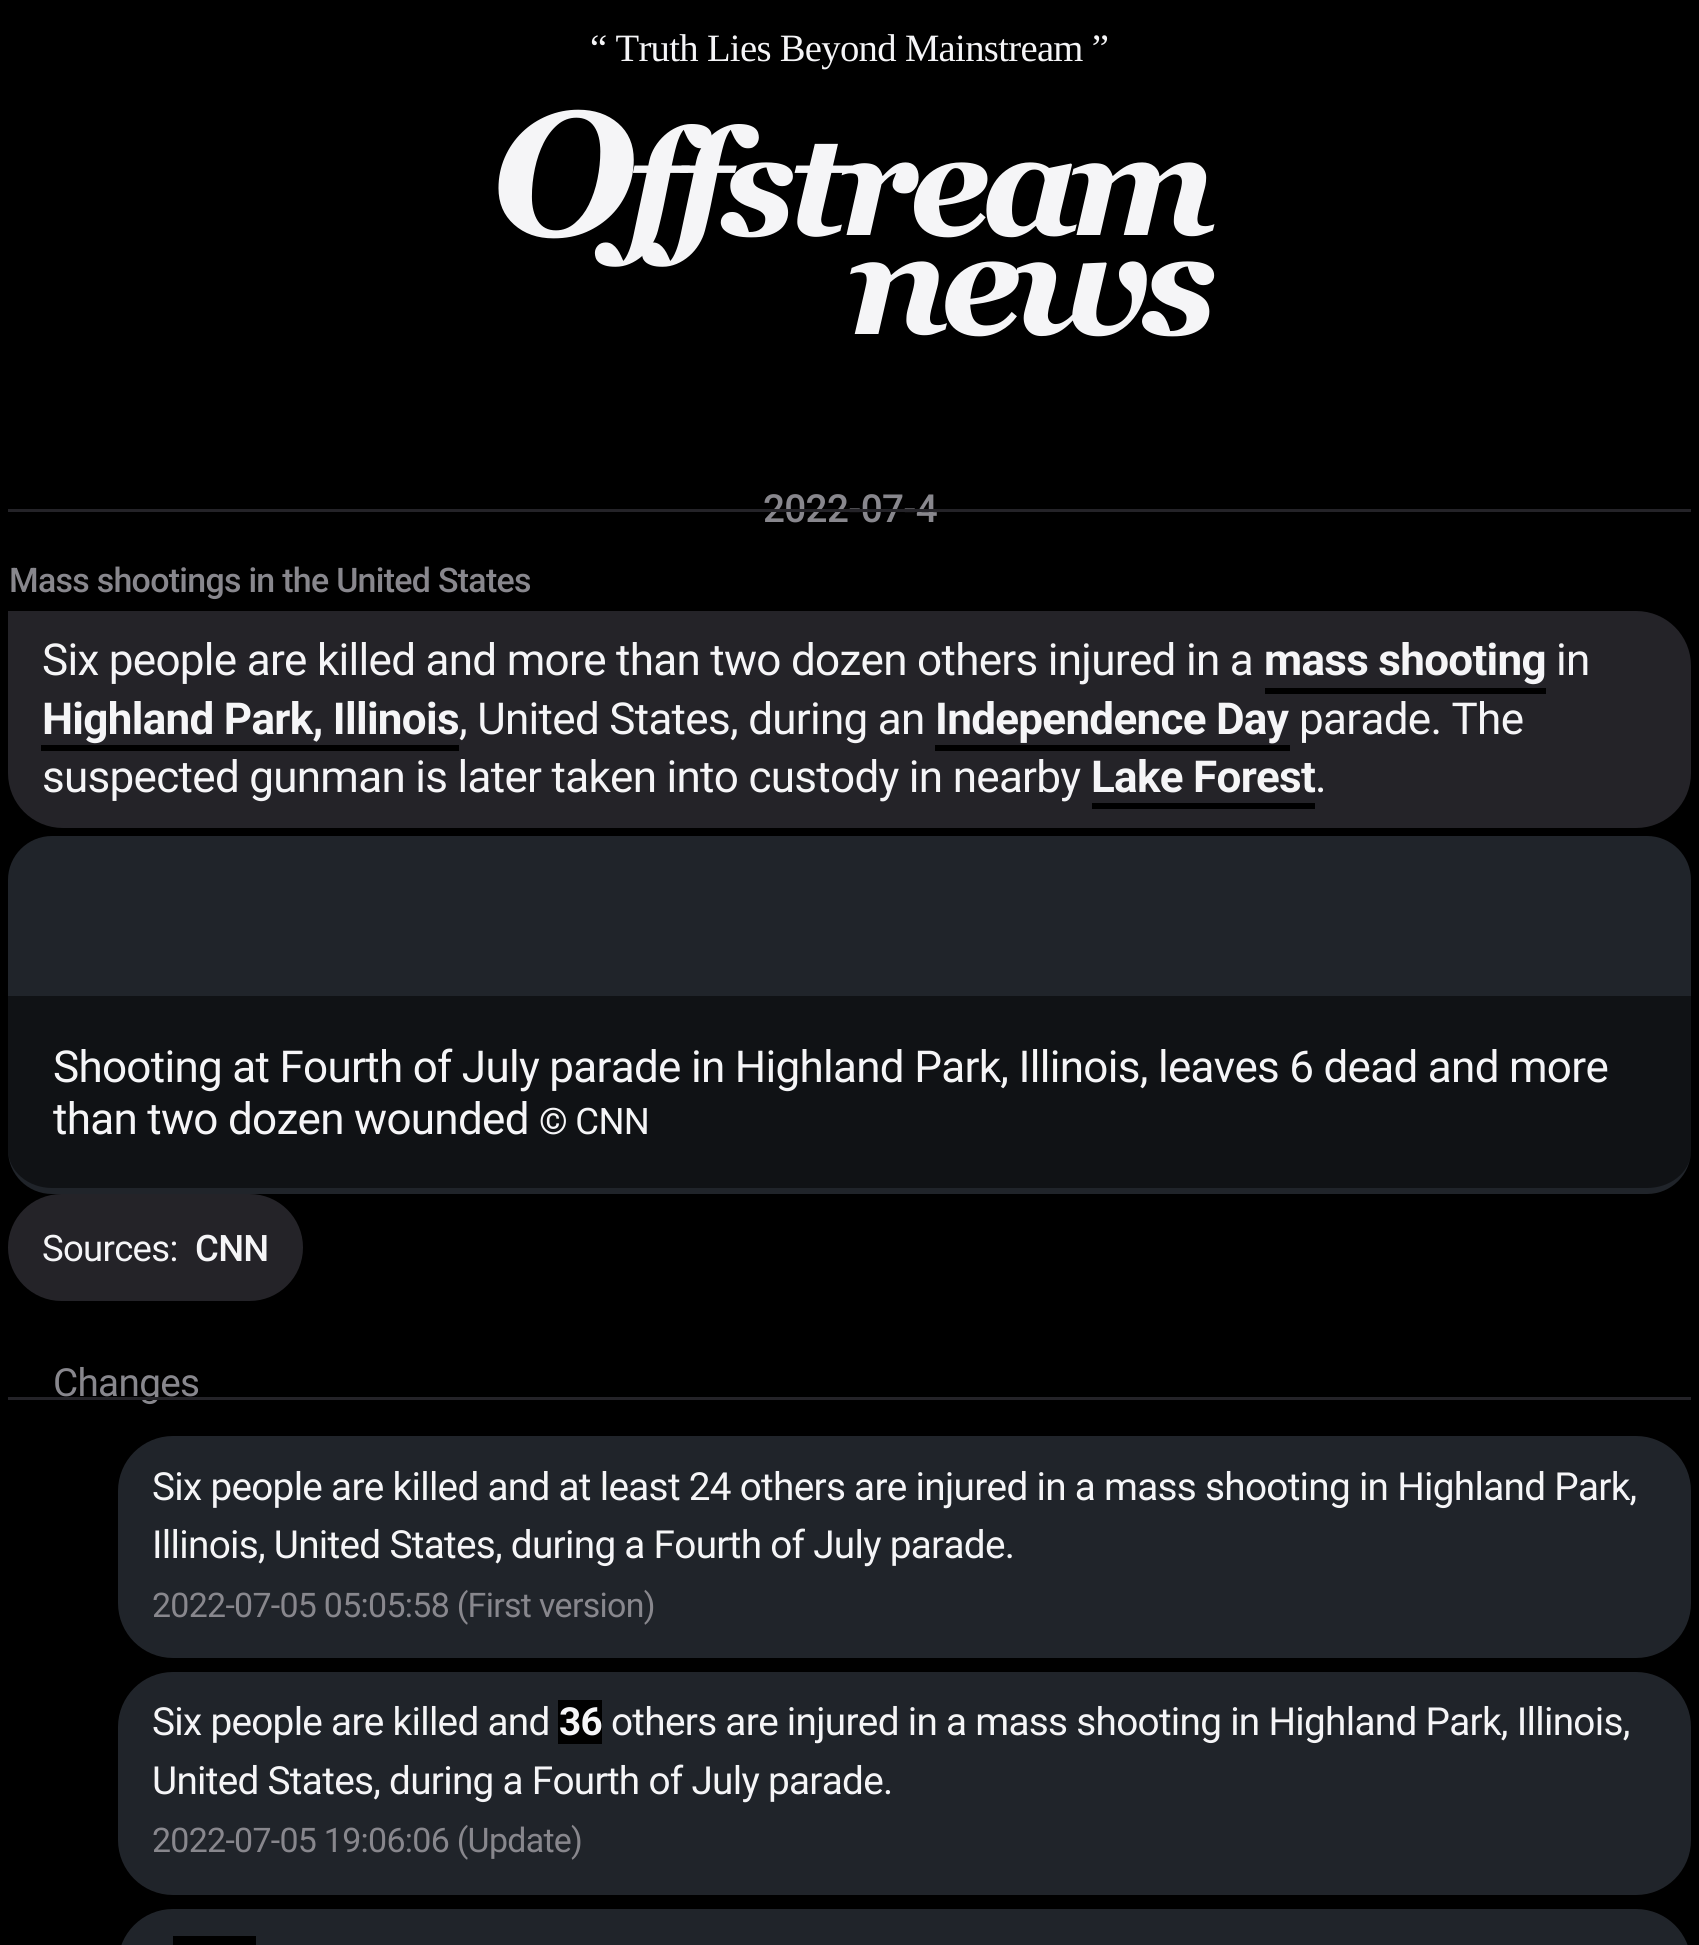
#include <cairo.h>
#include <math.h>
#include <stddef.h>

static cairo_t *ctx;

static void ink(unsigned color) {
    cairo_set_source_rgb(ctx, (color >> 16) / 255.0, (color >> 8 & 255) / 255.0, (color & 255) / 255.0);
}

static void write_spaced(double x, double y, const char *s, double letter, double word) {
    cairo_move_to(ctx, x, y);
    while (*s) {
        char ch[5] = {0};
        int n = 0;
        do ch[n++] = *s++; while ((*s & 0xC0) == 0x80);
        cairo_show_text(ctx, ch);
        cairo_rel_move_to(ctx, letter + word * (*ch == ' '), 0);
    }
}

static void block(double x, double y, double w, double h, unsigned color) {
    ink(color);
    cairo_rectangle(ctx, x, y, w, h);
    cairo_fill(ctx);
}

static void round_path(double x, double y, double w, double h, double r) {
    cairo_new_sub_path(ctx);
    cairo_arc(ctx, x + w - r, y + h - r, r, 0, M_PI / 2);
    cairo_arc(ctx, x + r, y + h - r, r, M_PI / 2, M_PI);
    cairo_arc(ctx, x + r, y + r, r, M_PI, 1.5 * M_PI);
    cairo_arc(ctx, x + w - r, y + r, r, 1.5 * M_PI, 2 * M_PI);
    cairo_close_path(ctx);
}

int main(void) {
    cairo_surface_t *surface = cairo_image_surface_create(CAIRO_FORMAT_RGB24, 1699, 1945);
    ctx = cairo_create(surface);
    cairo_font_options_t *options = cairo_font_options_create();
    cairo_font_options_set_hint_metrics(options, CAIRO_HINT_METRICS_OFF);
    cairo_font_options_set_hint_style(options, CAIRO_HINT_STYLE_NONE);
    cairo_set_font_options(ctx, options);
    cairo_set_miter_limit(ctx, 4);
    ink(0x000000);
    cairo_paint(ctx);
    cairo_select_font_face(ctx, "Liberation Serif", CAIRO_FONT_SLANT_NORMAL, CAIRO_FONT_WEIGHT_NORMAL);
    cairo_set_font_size(ctx, 38.7);
    ink(0xf5f5f7);
    write_spaced(590, 61, "“ Truth Lies Beyond Mainstream ”", -0.7, 0);
    cairo_select_font_face(ctx, "Georgia", CAIRO_FONT_SLANT_ITALIC, CAIRO_FONT_WEIGHT_BOLD);
    cairo_set_font_size(ctx, 176);
    write_spaced(491, 235, "O", -8.75, 0);
    cairo_set_font_size(ctx, 146.5);
    write_spaced(626, 235, "ffstream", -8.75, 0);
    write_spaced(848, 334, "news", -8.75, 0);
    cairo_select_font_face(ctx, "Roboto Medium", CAIRO_FONT_SLANT_NORMAL, CAIRO_FONT_WEIGHT_NORMAL);
    cairo_set_font_size(ctx, 38.7);
    ink(0x88878d);
    write_spaced(763, 522, "2022-07-4", -0.7, 0);
    block(8, 509, 1683, 3, 0x242328);
    cairo_set_font_size(ctx, 33.9);
    ink(0x88878d);
    write_spaced(9, 592, "Mass shootings in the United States", -0.7, 0);
    ink(0x242328);
    cairo_new_path(ctx);
    cairo_move_to(ctx, 8, 611);
    cairo_line_to(ctx, 1636, 611);
    cairo_curve_to(ctx, 1666.5, 611, 1691, 635.5, 1691, 666);
    cairo_line_to(ctx, 1691, 773);
    cairo_curve_to(ctx, 1691, 803.5, 1666.5, 828, 1636, 828);
    cairo_line_to(ctx, 63, 828);
    cairo_curve_to(ctx, 32.5, 828, 8, 803.5, 8, 773);
    cairo_close_path(ctx);
    cairo_fill(ctx);
    cairo_select_font_face(ctx, "Roboto", CAIRO_FONT_SLANT_NORMAL, CAIRO_FONT_WEIGHT_NORMAL);
    cairo_set_font_size(ctx, 44);
    ink(0xf5f5f7);
    write_spaced(42, 675, "Six people are killed and more than two dozen others injured in a", -0.7, 0);
    cairo_select_font_face(ctx, "Roboto", CAIRO_FONT_SLANT_NORMAL, CAIRO_FONT_WEIGHT_BOLD);
    write_spaced(1264, 675, "mass shooting", -0.7, 0);
    block(1265, 688, 281, 6, 0x000000);
    cairo_select_font_face(ctx, "Roboto", CAIRO_FONT_SLANT_NORMAL, CAIRO_FONT_WEIGHT_NORMAL);
    ink(0xf5f5f7);
    write_spaced(1556, 675, "in", -0.7, 0);
    cairo_select_font_face(ctx, "Roboto", CAIRO_FONT_SLANT_NORMAL, CAIRO_FONT_WEIGHT_BOLD);
    write_spaced(42, 734, "Highland Park, Illinois", -0.7, 0);
    block(41, 745, 418, 6, 0x000000);
    cairo_select_font_face(ctx, "Roboto", CAIRO_FONT_SLANT_NORMAL, CAIRO_FONT_WEIGHT_NORMAL);
    ink(0xf5f5f7);
    write_spaced(459, 734, ", United States, during an", -0.7, 0);
    cairo_select_font_face(ctx, "Roboto", CAIRO_FONT_SLANT_NORMAL, CAIRO_FONT_WEIGHT_BOLD);
    write_spaced(935, 734, "Independence Day", -0.7, 0);
    block(935, 745, 355, 6, 0x000000);
    cairo_select_font_face(ctx, "Roboto", CAIRO_FONT_SLANT_NORMAL, CAIRO_FONT_WEIGHT_NORMAL);
    ink(0xf5f5f7);
    write_spaced(1299, 734, "parade. The", -0.7, 0);
    write_spaced(42, 792, "suspected gunman is later taken into custody in nearby", -0.7, 0);
    cairo_select_font_face(ctx, "Roboto", CAIRO_FONT_SLANT_NORMAL, CAIRO_FONT_WEIGHT_BOLD);
    write_spaced(1091, 792, "Lake Forest", -0.7, 0);
    block(1092, 803, 223, 6, 0x000000);
    cairo_select_font_face(ctx, "Roboto", CAIRO_FONT_SLANT_NORMAL, CAIRO_FONT_WEIGHT_NORMAL);
    ink(0xf5f5f7);
    write_spaced(1315, 792, ".", -0.7, 0);
    ink(0x20242a);
    round_path(8, 836, 1683, 358, 44);
    cairo_fill(ctx);
    cairo_set_source_rgba(ctx, 0, 0, 0, 0.5);
    cairo_new_path(ctx);
    cairo_move_to(ctx, 52, 1188);
    cairo_line_to(ctx, 1647, 1188);
    cairo_curve_to(ctx, 1670, 1188, 1689, 1173, 1691, 1154);
    cairo_line_to(ctx, 1691, 996);
    cairo_line_to(ctx, 8, 996);
    cairo_line_to(ctx, 8, 1150);
    cairo_curve_to(ctx, 8, 1171, 28, 1188, 52, 1188);
    cairo_close_path(ctx);
    cairo_fill(ctx);
    ink(0xf5f5f7);
    write_spaced(53, 1082, "Shooting at Fourth of July parade in Highland Park, Illinois, leaves 6 dead and more", -0.7, 0);
    write_spaced(53, 1134, "than two dozen wounded", -0.7, 0);
    cairo_set_font_size(ctx, 36.5);
    write_spaced(539, 1134, "© CNN", -0.7, 0);
    ink(0x242328);
    round_path(8, 1194, 295, 107, 53.5);
    cairo_fill(ctx);
    ink(0xf5f5f7);
    write_spaced(42, 1261, "Sources:", -0.7, 0);
    cairo_select_font_face(ctx, "Roboto Medium", CAIRO_FONT_SLANT_NORMAL, CAIRO_FONT_WEIGHT_NORMAL);
    write_spaced(195, 1261, "CNN", -0.7, 0);
    cairo_select_font_face(ctx, "Roboto", CAIRO_FONT_SLANT_NORMAL, CAIRO_FONT_WEIGHT_NORMAL);
    cairo_set_font_size(ctx, 38.7);
    ink(0x88878d);
    write_spaced(53, 1396, "Changes", -0.7, 0);
    block(8, 1397, 1683, 3, 0x242328);
    ink(0x20242a);
    round_path(118, 1436, 1573, 222, 55);
    cairo_fill(ctx);
    ink(0xf5f5f7);
    write_spaced(152, 1500, "Six people are killed and at least 24 others are injured in a mass shooting in Highland Park,", -0.7, 0);
    write_spaced(152, 1558, "Illinois, United States, during a Fourth of July parade.", -0.7, 0);
    cairo_set_font_size(ctx, 33.9);
    ink(0x88878d);
    write_spaced(152, 1617, "2022-07-05 05:05:58 (First version)", -0.7, 0);
    ink(0x20242a);
    round_path(118, 1672, 1573, 223, 55);
    cairo_fill(ctx);
    cairo_set_font_size(ctx, 38.7);
    ink(0xf5f5f7);
    write_spaced(152, 1735, "Six people are killed and", -0.7, 0);
    block(558, 1700, 44, 44, 0x000000);
    cairo_select_font_face(ctx, "Roboto", CAIRO_FONT_SLANT_NORMAL, CAIRO_FONT_WEIGHT_BOLD);
    ink(0xf5f5f7);
    write_spaced(559, 1735, "36", -0.7, 0);
    cairo_select_font_face(ctx, "Roboto", CAIRO_FONT_SLANT_NORMAL, CAIRO_FONT_WEIGHT_NORMAL);
    write_spaced(611, 1735, "others are injured in a mass shooting in Highland Park, Illinois,", -0.7, 0);
    write_spaced(152, 1794, "United States, during a Fourth of July parade.", -0.7, 0);
    cairo_set_font_size(ctx, 33.9);
    ink(0x88878d);
    write_spaced(152, 1852, "2022-07-05 19:06:06 (Update)", -0.7, 0);
    ink(0x20242a);
    round_path(118, 1909, 1573, 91, 55);
    cairo_fill(ctx);
    block(173, 1936, 83, 9, 0x000000);
    cairo_surface_write_to_png(surface, "screenshot.png");
    cairo_font_options_destroy(options);
    cairo_destroy(ctx);
    cairo_surface_destroy(surface);
    return 0;
}
